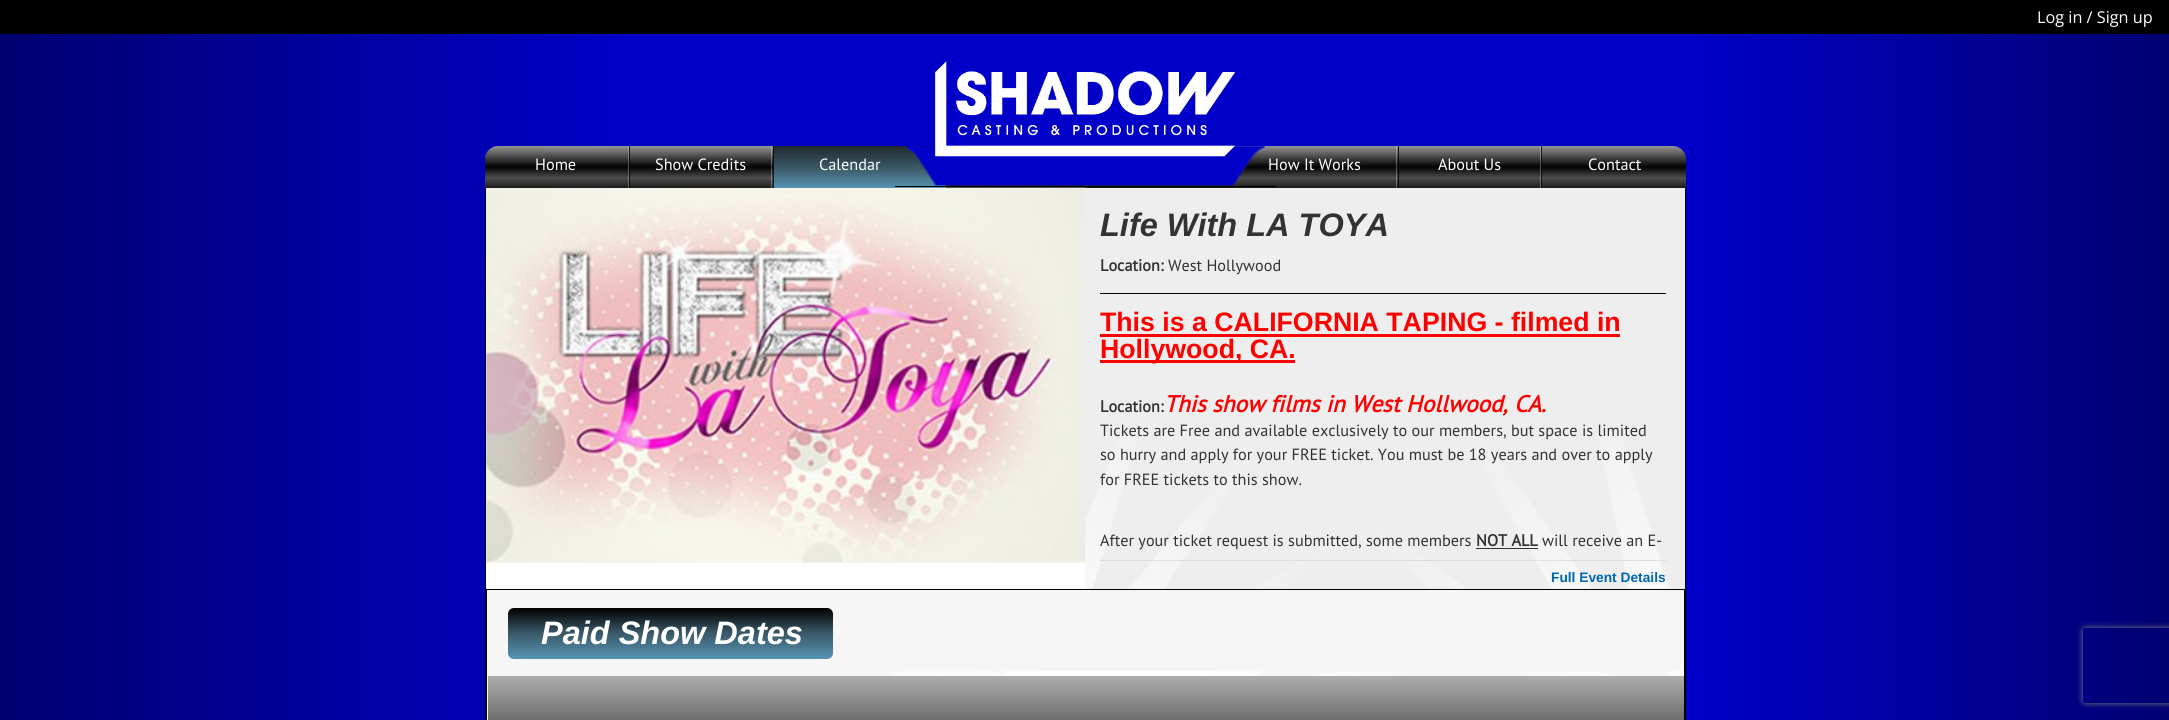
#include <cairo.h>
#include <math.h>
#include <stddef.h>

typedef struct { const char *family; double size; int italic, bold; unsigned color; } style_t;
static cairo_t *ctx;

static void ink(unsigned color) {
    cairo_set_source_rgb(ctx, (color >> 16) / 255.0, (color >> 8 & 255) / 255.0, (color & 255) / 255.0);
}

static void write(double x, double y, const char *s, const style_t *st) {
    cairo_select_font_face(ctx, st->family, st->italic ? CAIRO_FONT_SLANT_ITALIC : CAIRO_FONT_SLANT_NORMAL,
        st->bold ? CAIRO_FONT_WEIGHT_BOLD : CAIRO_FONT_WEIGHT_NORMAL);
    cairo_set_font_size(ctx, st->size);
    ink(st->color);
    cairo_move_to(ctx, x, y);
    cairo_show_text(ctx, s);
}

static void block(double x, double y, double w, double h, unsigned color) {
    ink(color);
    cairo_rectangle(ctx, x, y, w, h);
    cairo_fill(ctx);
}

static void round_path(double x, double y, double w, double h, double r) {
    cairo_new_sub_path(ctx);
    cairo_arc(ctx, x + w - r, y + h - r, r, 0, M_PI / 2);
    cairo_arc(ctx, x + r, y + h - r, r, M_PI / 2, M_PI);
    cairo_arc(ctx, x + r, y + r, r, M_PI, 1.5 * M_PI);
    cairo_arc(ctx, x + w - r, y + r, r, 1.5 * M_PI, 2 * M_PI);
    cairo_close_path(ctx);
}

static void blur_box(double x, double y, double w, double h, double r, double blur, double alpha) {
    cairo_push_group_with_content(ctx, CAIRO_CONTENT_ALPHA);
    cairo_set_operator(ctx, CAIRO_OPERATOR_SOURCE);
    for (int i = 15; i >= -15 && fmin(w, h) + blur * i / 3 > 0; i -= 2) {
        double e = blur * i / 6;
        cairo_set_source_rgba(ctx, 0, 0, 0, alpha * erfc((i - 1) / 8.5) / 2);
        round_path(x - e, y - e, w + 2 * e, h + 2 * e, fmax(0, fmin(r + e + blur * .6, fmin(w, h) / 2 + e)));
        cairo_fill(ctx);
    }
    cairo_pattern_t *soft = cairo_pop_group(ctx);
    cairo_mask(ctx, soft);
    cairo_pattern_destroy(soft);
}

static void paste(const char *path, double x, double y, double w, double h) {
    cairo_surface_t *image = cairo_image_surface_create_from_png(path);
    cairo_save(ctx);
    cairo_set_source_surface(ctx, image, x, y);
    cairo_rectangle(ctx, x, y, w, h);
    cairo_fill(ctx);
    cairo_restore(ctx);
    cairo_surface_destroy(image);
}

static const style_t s1 = {"Open Sans", 16.25, 0, 0, 0xffffff};
static const style_t s2 = {"PT Sans", 16.25, 0, 0, 0xffffff};
static const style_t s3 = {"Liberation Sans", 32.5, 1, 1, 0x333333};
static const style_t s4 = {"PT Sans", 16.25, 0, 1, 0x333333};
static const style_t s5 = {"PT Sans", 16.25, 0, 0, 0x333333};
static const style_t s6 = {"Liberation Sans", 26.7, 0, 1, 0xff0000};
static const style_t s7 = {"PT Sans", 23.3, 1, 1, 0xff0000};
static const style_t s8 = {"Liberation Sans", 13.75, 0, 1, 0x0065b3};
static const style_t s9 = {"Liberation Sans", 32.5, 1, 1, 0xffffff};

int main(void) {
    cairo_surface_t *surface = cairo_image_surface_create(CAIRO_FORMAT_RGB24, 2169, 720);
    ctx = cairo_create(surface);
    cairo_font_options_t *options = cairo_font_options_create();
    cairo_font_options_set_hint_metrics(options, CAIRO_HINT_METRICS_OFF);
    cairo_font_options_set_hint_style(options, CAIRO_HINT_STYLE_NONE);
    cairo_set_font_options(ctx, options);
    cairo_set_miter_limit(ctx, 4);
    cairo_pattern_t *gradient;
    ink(0xffffff);
    cairo_paint(ctx);
    gradient = cairo_pattern_create_linear(0, 569, 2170, 569);
    cairo_pattern_add_color_stop_rgba(gradient, 0, 0, 0, 0.443, 1);
    cairo_pattern_add_color_stop_rgba(gradient, 0.29, 0, 0, 0.784, 1);
    cairo_pattern_add_color_stop_rgba(gradient, 0.78, 0, 0, 0.784, 1);
    cairo_pattern_add_color_stop_rgba(gradient, 1, 0, 0, 0.443, 1);
    cairo_set_source(ctx, gradient);
    cairo_pattern_destroy(gradient);
    cairo_rectangle(ctx, 0, 34, 2169, 686);
    cairo_fill(ctx);
    block(0, 0, 2169, 34, 0x000000);
    write(2037, 23, "Log in / Sign up", &s1);
    gradient = cairo_pattern_create_linear(1085, 146, 1085, 188);
    cairo_pattern_add_color_stop_rgba(gradient, 0, 0.584, 0.584, 0.584, 1);
    cairo_pattern_add_color_stop_rgba(gradient, 0.46, 0.051, 0.051, 0.051, 1);
    cairo_pattern_add_color_stop_rgba(gradient, 0.5, 0.004, 0.004, 0.004, 1);
    cairo_pattern_add_color_stop_rgba(gradient, 0.53, 0.039, 0.039, 0.039, 1);
    cairo_pattern_add_color_stop_rgba(gradient, 0.76, 0.306, 0.306, 0.306, 1);
    cairo_pattern_add_color_stop_rgba(gradient, 0.87, 0.22, 0.22, 0.22, 1);
    cairo_pattern_add_color_stop_rgba(gradient, 1, 0.106, 0.106, 0.106, 1);
    cairo_set_source(ctx, gradient);
    cairo_pattern_destroy(gradient);
    cairo_rectangle(ctx, 946, 146, 452, 42);
    cairo_fill(ctx);
    block(486, 188, 599, 375, 0xf6f6f6);
    paste("pic3.png", 486, 187, 600, 376);
    gradient = cairo_pattern_create_linear(860, 146, 860, 188);
    cairo_pattern_add_color_stop_rgba(gradient, 0, 0.125, 0.161, 0.176, 1);
    cairo_pattern_add_color_stop_rgba(gradient, 0.5, 0.227, 0.341, 0.396, 1);
    cairo_pattern_add_color_stop_rgba(gradient, 0.51, 0.227, 0.341, 0.396, 1);
    cairo_pattern_add_color_stop_rgba(gradient, 1, 0.337, 0.58, 0.706, 1);
    cairo_set_source(ctx, gradient);
    cairo_pattern_destroy(gradient);
    cairo_rectangle(ctx, 773, 146, 173, 42);
    cairo_fill(ctx);
    paste("pic2.png", 906, 146, 359, 40);
    paste("pic1.png", 935, 61, 300, 96);
    block(895, 186, 381, 1, 0x000000);
    gradient = cairo_pattern_create_linear(556, 146, 556, 188);
    cairo_pattern_add_color_stop_rgba(gradient, 0, 0.584, 0.584, 0.584, 1);
    cairo_pattern_add_color_stop_rgba(gradient, 0.46, 0.051, 0.051, 0.051, 1);
    cairo_pattern_add_color_stop_rgba(gradient, 0.5, 0.004, 0.004, 0.004, 1);
    cairo_pattern_add_color_stop_rgba(gradient, 0.53, 0.039, 0.039, 0.039, 1);
    cairo_pattern_add_color_stop_rgba(gradient, 0.76, 0.306, 0.306, 0.306, 1);
    cairo_pattern_add_color_stop_rgba(gradient, 0.87, 0.22, 0.22, 0.22, 1);
    cairo_pattern_add_color_stop_rgba(gradient, 1, 0.106, 0.106, 0.106, 1);
    cairo_set_source(ctx, gradient);
    cairo_pattern_destroy(gradient);
    cairo_new_path(ctx);
    cairo_move_to(ctx, 498, 146);
    cairo_line_to(ctx, 629, 146);
    cairo_line_to(ctx, 629, 188);
    cairo_line_to(ctx, 485, 188);
    cairo_line_to(ctx, 485, 159);
    cairo_curve_to(ctx, 485, 152, 491, 146, 498, 146);
    cairo_close_path(ctx);
    cairo_fill(ctx);
    cairo_set_source_rgba(ctx, 1, 1, 1, 0.28);
    cairo_rectangle(ctx, 628, 146, 1, 42);
    cairo_fill(ctx);
    write(535, 170, "Home", &s2);
    gradient = cairo_pattern_create_linear(701, 146, 701, 188);
    cairo_pattern_add_color_stop_rgba(gradient, 0, 0.584, 0.584, 0.584, 1);
    cairo_pattern_add_color_stop_rgba(gradient, 0.46, 0.051, 0.051, 0.051, 1);
    cairo_pattern_add_color_stop_rgba(gradient, 0.5, 0.004, 0.004, 0.004, 1);
    cairo_pattern_add_color_stop_rgba(gradient, 0.53, 0.039, 0.039, 0.039, 1);
    cairo_pattern_add_color_stop_rgba(gradient, 0.76, 0.306, 0.306, 0.306, 1);
    cairo_pattern_add_color_stop_rgba(gradient, 0.87, 0.22, 0.22, 0.22, 1);
    cairo_pattern_add_color_stop_rgba(gradient, 1, 0.106, 0.106, 0.106, 1);
    cairo_set_source(ctx, gradient);
    cairo_pattern_destroy(gradient);
    cairo_rectangle(ctx, 629, 146, 144, 42);
    cairo_fill(ctx);
    cairo_set_source_rgba(ctx, 1, 1, 1, 0.28);
    cairo_rectangle(ctx, 771, 146, 1, 42);
    cairo_fill(ctx);
    cairo_set_source_rgba(ctx, 0, 0, 0, 0.78);
    cairo_rectangle(ctx, 629, 146, 1, 42);
    cairo_fill(ctx);
    write(655, 170, "Show Credits", &s2);
    cairo_set_source_rgba(ctx, 0, 0, 0, 0.78);
    cairo_rectangle(ctx, 773, 146, 1, 42);
    cairo_fill(ctx);
    write(819, 170, "Calendar", &s2);
    gradient = cairo_pattern_create_linear(1085, 146, 1085, 188);
    cairo_pattern_add_color_stop_rgba(gradient, 0, 0.702, 0.702, 0.702, 1);
    cairo_pattern_add_color_stop_rgba(gradient, 0.46, 0.318, 0.318, 0.318, 1);
    cairo_pattern_add_color_stop_rgba(gradient, 0.5, 0.282, 0.282, 0.282, 1);
    cairo_pattern_add_color_stop_rgba(gradient, 0.53, 0.31, 0.31, 0.31, 1);
    cairo_pattern_add_color_stop_rgba(gradient, 0.76, 0.502, 0.502, 0.502, 1);
    cairo_pattern_add_color_stop_rgba(gradient, 0.87, 0.439, 0.439, 0.439, 1);
    cairo_pattern_add_color_stop_rgba(gradient, 1, 0.357, 0.357, 0.357, 1);
    cairo_set_source(ctx, gradient);
    cairo_pattern_destroy(gradient);
    cairo_rectangle(ctx, 1396, 146, 1, 42);
    cairo_fill(ctx);
    write(1268, 170, "How It Works", &s2);
    gradient = cairo_pattern_create_linear(1469, 146, 1469, 188);
    cairo_pattern_add_color_stop_rgba(gradient, 0, 0.584, 0.584, 0.584, 1);
    cairo_pattern_add_color_stop_rgba(gradient, 0.46, 0.051, 0.051, 0.051, 1);
    cairo_pattern_add_color_stop_rgba(gradient, 0.5, 0.004, 0.004, 0.004, 1);
    cairo_pattern_add_color_stop_rgba(gradient, 0.53, 0.039, 0.039, 0.039, 1);
    cairo_pattern_add_color_stop_rgba(gradient, 0.76, 0.306, 0.306, 0.306, 1);
    cairo_pattern_add_color_stop_rgba(gradient, 0.87, 0.22, 0.22, 0.22, 1);
    cairo_pattern_add_color_stop_rgba(gradient, 1, 0.106, 0.106, 0.106, 1);
    cairo_set_source(ctx, gradient);
    cairo_pattern_destroy(gradient);
    cairo_rectangle(ctx, 1399, 146, 141, 42);
    cairo_fill(ctx);
    gradient = cairo_pattern_create_linear(1469, 146, 1469, 188);
    cairo_pattern_add_color_stop_rgba(gradient, 0, 0.129, 0.129, 0.129, 1);
    cairo_pattern_add_color_stop_rgba(gradient, 0.46, 0.012, 0.012, 0.012, 1);
    cairo_pattern_add_color_stop_rgba(gradient, 0.5, 0, 0, 0, 1);
    cairo_pattern_add_color_stop_rgba(gradient, 0.53, 0.008, 0.008, 0.008, 1);
    cairo_pattern_add_color_stop_rgba(gradient, 0.76, 0.067, 0.067, 0.067, 1);
    cairo_pattern_add_color_stop_rgba(gradient, 0.87, 0.047, 0.047, 0.047, 1);
    cairo_pattern_add_color_stop_rgba(gradient, 1, 0.024, 0.024, 0.024, 1);
    cairo_set_source(ctx, gradient);
    cairo_pattern_destroy(gradient);
    cairo_rectangle(ctx, 1398, 146, 1, 42);
    cairo_fill(ctx);
    gradient = cairo_pattern_create_linear(1469, 146, 1469, 188);
    cairo_pattern_add_color_stop_rgba(gradient, 0, 0.702, 0.702, 0.702, 1);
    cairo_pattern_add_color_stop_rgba(gradient, 0.46, 0.318, 0.318, 0.318, 1);
    cairo_pattern_add_color_stop_rgba(gradient, 0.5, 0.282, 0.282, 0.282, 1);
    cairo_pattern_add_color_stop_rgba(gradient, 0.53, 0.31, 0.31, 0.31, 1);
    cairo_pattern_add_color_stop_rgba(gradient, 0.76, 0.502, 0.502, 0.502, 1);
    cairo_pattern_add_color_stop_rgba(gradient, 0.87, 0.439, 0.439, 0.439, 1);
    cairo_pattern_add_color_stop_rgba(gradient, 1, 0.357, 0.357, 0.357, 1);
    cairo_set_source(ctx, gradient);
    cairo_pattern_destroy(gradient);
    cairo_rectangle(ctx, 1540, 146, 1, 42);
    cairo_fill(ctx);
    write(1438, 170, "About Us", &s2);
    gradient = cairo_pattern_create_linear(1614, 146, 1614, 188);
    cairo_pattern_add_color_stop_rgba(gradient, 0, 0.584, 0.584, 0.584, 1);
    cairo_pattern_add_color_stop_rgba(gradient, 0.46, 0.051, 0.051, 0.051, 1);
    cairo_pattern_add_color_stop_rgba(gradient, 0.5, 0.004, 0.004, 0.004, 1);
    cairo_pattern_add_color_stop_rgba(gradient, 0.53, 0.039, 0.039, 0.039, 1);
    cairo_pattern_add_color_stop_rgba(gradient, 0.76, 0.306, 0.306, 0.306, 1);
    cairo_pattern_add_color_stop_rgba(gradient, 0.87, 0.22, 0.22, 0.22, 1);
    cairo_pattern_add_color_stop_rgba(gradient, 1, 0.106, 0.106, 0.106, 1);
    cairo_set_source(ctx, gradient);
    cairo_pattern_destroy(gradient);
    cairo_new_path(ctx);
    cairo_move_to(ctx, 1541, 146);
    cairo_line_to(ctx, 1673, 146);
    cairo_curve_to(ctx, 1680, 146, 1686, 152, 1686, 159);
    cairo_line_to(ctx, 1686, 188);
    cairo_line_to(ctx, 1541, 188);
    cairo_close_path(ctx);
    cairo_fill(ctx);
    gradient = cairo_pattern_create_linear(1614, 146, 1614, 188);
    cairo_pattern_add_color_stop_rgba(gradient, 0, 0.129, 0.129, 0.129, 1);
    cairo_pattern_add_color_stop_rgba(gradient, 0.46, 0.012, 0.012, 0.012, 1);
    cairo_pattern_add_color_stop_rgba(gradient, 0.5, 0, 0, 0, 1);
    cairo_pattern_add_color_stop_rgba(gradient, 0.53, 0.008, 0.008, 0.008, 1);
    cairo_pattern_add_color_stop_rgba(gradient, 0.76, 0.067, 0.067, 0.067, 1);
    cairo_pattern_add_color_stop_rgba(gradient, 0.87, 0.047, 0.047, 0.047, 1);
    cairo_pattern_add_color_stop_rgba(gradient, 1, 0.024, 0.024, 0.024, 1);
    cairo_set_source(ctx, gradient);
    cairo_pattern_destroy(gradient);
    cairo_rectangle(ctx, 1541, 146, 1, 42);
    cairo_fill(ctx);
    write(1588, 170, "Contact", &s2);
    block(486, 563, 599, 26, 0xffffff);
    block(1685, 188, 1, 532, 0x000000);
    block(485, 188, 1, 532, 0x000000);
    block(1085, 188, 600, 401, 0xeeeeee);
    paste("pic4.png", 1085, 429, 584, 160);
    write(1100, 236, "Life With LA TOYA", &s3);
    write(1100, 271, "Location:", &s4);
    write(1168, 271, "West Hollywood", &s5);
    block(1100, 293, 566, 1, 0x000000);
    block(1100, 560, 566, 1, 0xdedede);
    write(1100, 331, "This is a CALIFORNIA TAPING - filmed in", &s6);
    block(1100, 334, 520, 3, 0xff0000);
    block(1100, 360, 195, 3, 0xff0000);
    write(1100, 358, "Hollywood, CA.", &s6);
    write(1100, 412, "Location:", &s4);
    write(1164, 412, "This show films in West Hollwood, CA.", &s7);
    write(1100, 436, "Tickets are Free and available exclusively to our members, but space is limited", &s5);
    write(1100, 460, "so hurry and apply for your FREE ticket. You must be 18 years and over to apply", &s5);
    write(1100, 485, "for FREE tickets to this show.", &s5);
    write(1100, 546, "After your ticket request is submitted, some members", &s5);
    write(1476, 546, "NOT ALL", &s4);
    block(1476, 548, 62, 1, 0x333333);
    write(1542, 546, "will receive an E-", &s5);
    write(1551, 582, "Full Event Details", &s8);
    block(487, 590, 1197, 130, 0xf6f6f6);
    block(486, 589, 1199, 1, 0x000000);
    block(1684, 589, 1, 131, 0x000000);
    block(486, 589, 1, 131, 0x000000);
    gradient = cairo_pattern_create_linear(670, 608, 670, 659);
    cairo_pattern_add_color_stop_rgba(gradient, 0, 0, 0, 0, 1);
    cairo_pattern_add_color_stop_rgba(gradient, 0.5, 0.231, 0.353, 0.416, 1);
    cairo_pattern_add_color_stop_rgba(gradient, 0.51, 0.231, 0.353, 0.416, 1);
    cairo_pattern_add_color_stop_rgba(gradient, 1, 0.337, 0.58, 0.706, 1);
    cairo_set_source(ctx, gradient);
    cairo_pattern_destroy(gradient);
    round_path(508, 608, 325, 51, 6);
    cairo_fill(ctx);
    write(541, 644, "Paid Show Dates", &s9);
    paste("pic5.png", 890, 671, 794, 5);
    gradient = cairo_pattern_create_linear(1086, 676, 1086, 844);
    cairo_pattern_add_color_stop_rgba(gradient, 0, 0.678, 0.678, 0.678, 1);
    cairo_pattern_add_color_stop_rgba(gradient, 0.59, 0.125, 0.129, 0.129, 1);
    cairo_pattern_add_color_stop_rgba(gradient, 0.6, 0.125, 0.129, 0.129, 1);
    cairo_pattern_add_color_stop_rgba(gradient, 1, 0.067, 0.071, 0.071, 1);
    cairo_set_source(ctx, gradient);
    cairo_pattern_destroy(gradient);
    cairo_rectangle(ctx, 488, 676, 1196, 44);
    cairo_fill(ctx);
    cairo_save(ctx);
    cairo_set_fill_rule(ctx, CAIRO_FILL_RULE_EVEN_ODD);
    cairo_new_path(ctx);
    cairo_move_to(ctx, 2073, 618);
    cairo_line_to(ctx, 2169, 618);
    cairo_line_to(ctx, 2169, 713);
    cairo_line_to(ctx, 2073, 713);
    cairo_close_path(ctx);
    cairo_move_to(ctx, 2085.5, 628);
    cairo_line_to(ctx, 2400.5, 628);
    cairo_curve_to(ctx, 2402, 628, 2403, 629, 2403, 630.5);
    cairo_line_to(ctx, 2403, 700.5);
    cairo_curve_to(ctx, 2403, 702, 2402, 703, 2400.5, 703);
    cairo_line_to(ctx, 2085.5, 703);
    cairo_curve_to(ctx, 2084, 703, 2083, 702, 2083, 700.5);
    cairo_line_to(ctx, 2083, 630.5);
    cairo_curve_to(ctx, 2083, 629, 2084, 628, 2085.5, 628);
    cairo_close_path(ctx);
    cairo_clip(ctx);
    ink(0x808080);
    blur_box(2083, 628, 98, 75, 2.5, 3, 1);
    cairo_restore(ctx);
    cairo_surface_write_to_png(surface, "screenshot.png");
    cairo_font_options_destroy(options);
    cairo_destroy(ctx);
    cairo_surface_destroy(surface);
    return 0;
}
